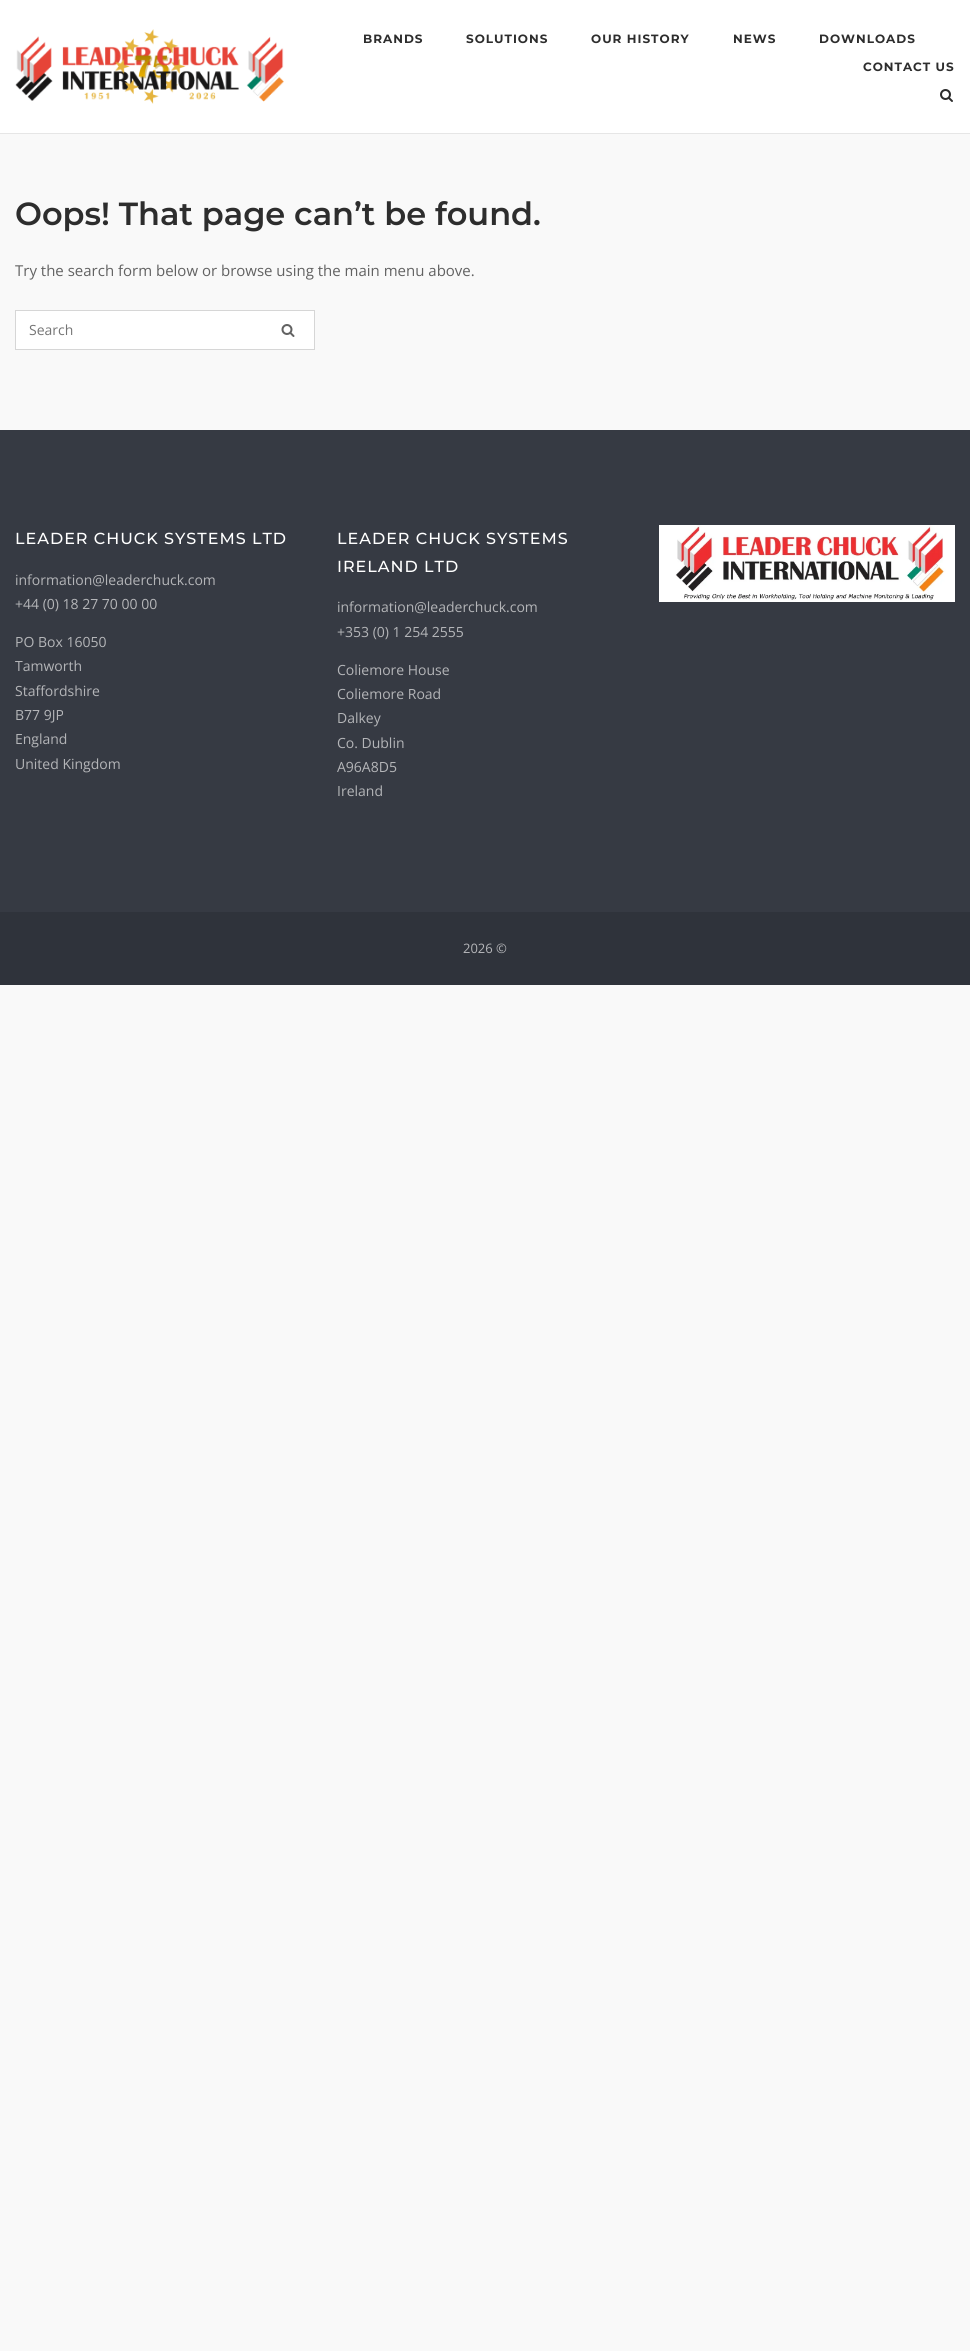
#include <cairo.h>
#include <math.h>
#include <stddef.h>

typedef struct { const char *family; double size; int italic, bold; unsigned color; } style_t;
static cairo_t *ctx;

static void ink(unsigned color) {
    cairo_set_source_rgb(ctx, (color >> 16) / 255.0, (color >> 8 & 255) / 255.0, (color & 255) / 255.0);
}

static void write(double x, double y, const char *s, const style_t *st) {
    cairo_select_font_face(ctx, st->family, st->italic ? CAIRO_FONT_SLANT_ITALIC : CAIRO_FONT_SLANT_NORMAL,
        st->bold ? CAIRO_FONT_WEIGHT_BOLD : CAIRO_FONT_WEIGHT_NORMAL);
    cairo_set_font_size(ctx, st->size);
    ink(st->color);
    cairo_move_to(ctx, x, y);
    cairo_show_text(ctx, s);
}

static void write_spaced(double x, double y, const char *s, double letter, double word) {
    cairo_move_to(ctx, x, y);
    while (*s) {
        char ch[5] = {0};
        int n = 0;
        do ch[n++] = *s++; while ((*s & 0xC0) == 0x80);
        cairo_show_text(ctx, ch);
        cairo_rel_move_to(ctx, letter + word * (*ch == ' '), 0);
    }
}

static void block(double x, double y, double w, double h, unsigned color) {
    ink(color);
    cairo_rectangle(ctx, x, y, w, h);
    cairo_fill(ctx);
}

static void paste(const char *path, double x, double y, double w, double h) {
    cairo_surface_t *image = cairo_image_surface_create_from_png(path);
    cairo_save(ctx);
    cairo_set_source_surface(ctx, image, x, y);
    cairo_rectangle(ctx, x, y, w, h);
    cairo_fill(ctx);
    cairo_restore(ctx);
    cairo_surface_destroy(image);
}

static const style_t s1 = {"Montserrat SemiBold", 32, 0, 0, 0x2d2d2d};
static const style_t s2 = {"Open Sans", 15, 0, 0, 0x626262};
static const style_t s3 = {"Open Sans", 14, 0, 0, 0x757575};
static const style_t s4 = {"Open Sans", 14, 0, 0, 0xb4b5b8};
static const style_t s5 = {"Open Sans", 13, 0, 0, 0xb4b5b8};

int main(void) {
    cairo_surface_t *surface = cairo_image_surface_create(CAIRO_FORMAT_RGB24, 970, 2351);
    ctx = cairo_create(surface);
    cairo_font_options_t *options = cairo_font_options_create();
    cairo_font_options_set_hint_metrics(options, CAIRO_HINT_METRICS_OFF);
    cairo_font_options_set_hint_style(options, CAIRO_HINT_STYLE_NONE);
    cairo_set_font_options(ctx, options);
    cairo_set_miter_limit(ctx, 4);
    ink(0xf9f9f9);
    cairo_paint(ctx);
    block(0, 0, 970, 133, 0xffffff);
    block(0, 133, 970, 1, 0xe6e6e6);
    paste("pic1.png", 15, 29, 269, 75);
    cairo_select_font_face(ctx, "Montserrat", CAIRO_FONT_SLANT_NORMAL, CAIRO_FONT_WEIGHT_BOLD);
    cairo_set_font_size(ctx, 12);
    ink(0x2d2d2d);
    write_spaced(363, 43, "BRANDS", 1, 0);
    write_spaced(466, 43, "SOLUTIONS", 1, 0);
    write_spaced(591, 43, "OUR HISTORY", 1, 0);
    write_spaced(733, 43, "NEWS", 1, 0);
    write_spaced(819, 43, "DOWNLOADS", 1, 0);
    write_spaced(863, 71, "CONTACT US", 1, 0);
    paste("pic2.png", 940, 89, 13, 13);
    write(15, 225, "Oops! That page can’t be found.", &s1);
    write(15, 276, "Try the search form below or browse using the main menu above.", &s2);
    ink(0xffffff);
    cairo_rectangle(ctx, 15.5, 310.5, 299, 39);
    cairo_fill_preserve(ctx);
    ink(0xd6d6d6);
    cairo_set_line_width(ctx, 1);
    cairo_stroke(ctx);
    write(29, 335, "Search", &s3);
    paste("pic3.png", 281, 324, 14, 13);
    block(0, 430, 970, 482, 0x363a43);
    cairo_select_font_face(ctx, "Montserrat Medium", CAIRO_FONT_SLANT_NORMAL, CAIRO_FONT_WEIGHT_NORMAL);
    cairo_set_font_size(ctx, 16);
    ink(0xffffff);
    write_spaced(15, 544, "LEADER CHUCK SYSTEMS LTD", 1, 0);
    write(15, 585, "information@leaderchuck.com", &s4);
    write(15, 609, "+44 (0) 18 27 70 00 00", &s4);
    write(15, 647, "PO Box 16050", &s4);
    write(15, 671, "Tamworth", &s4);
    write(15, 696, "Staffordshire", &s4);
    write(15, 720, "B77 9JP", &s4);
    write(15, 744, "England", &s4);
    write(15, 769, "United Kingdom", &s4);
    cairo_select_font_face(ctx, "Montserrat Medium", CAIRO_FONT_SLANT_NORMAL, CAIRO_FONT_WEIGHT_NORMAL);
    cairo_set_font_size(ctx, 16);
    ink(0xffffff);
    write_spaced(337, 544, "LEADER CHUCK SYSTEMS", 1, 0);
    write_spaced(337, 572, "IRELAND LTD", 1, 0);
    write(337, 612, "information@leaderchuck.com", &s4);
    write(337, 637, "+353 (0) 1 254 2555", &s4);
    write(337, 675, "Coliemore House", &s4);
    write(337, 699, "Coliemore Road", &s4);
    write(337, 723, "Dalkey", &s4);
    write(337, 748, "Co. Dublin", &s4);
    write(337, 772, "A96A8D5", &s4);
    write(337, 796, "Ireland", &s4);
    paste("pic4.png", 659, 525, 296, 77);
    block(0, 912, 970, 73, 0x2f333b);
    write(463, 953, "2026 ©", &s5);
    cairo_surface_write_to_png(surface, "screenshot.png");
    cairo_font_options_destroy(options);
    cairo_destroy(ctx);
    cairo_surface_destroy(surface);
    return 0;
}
